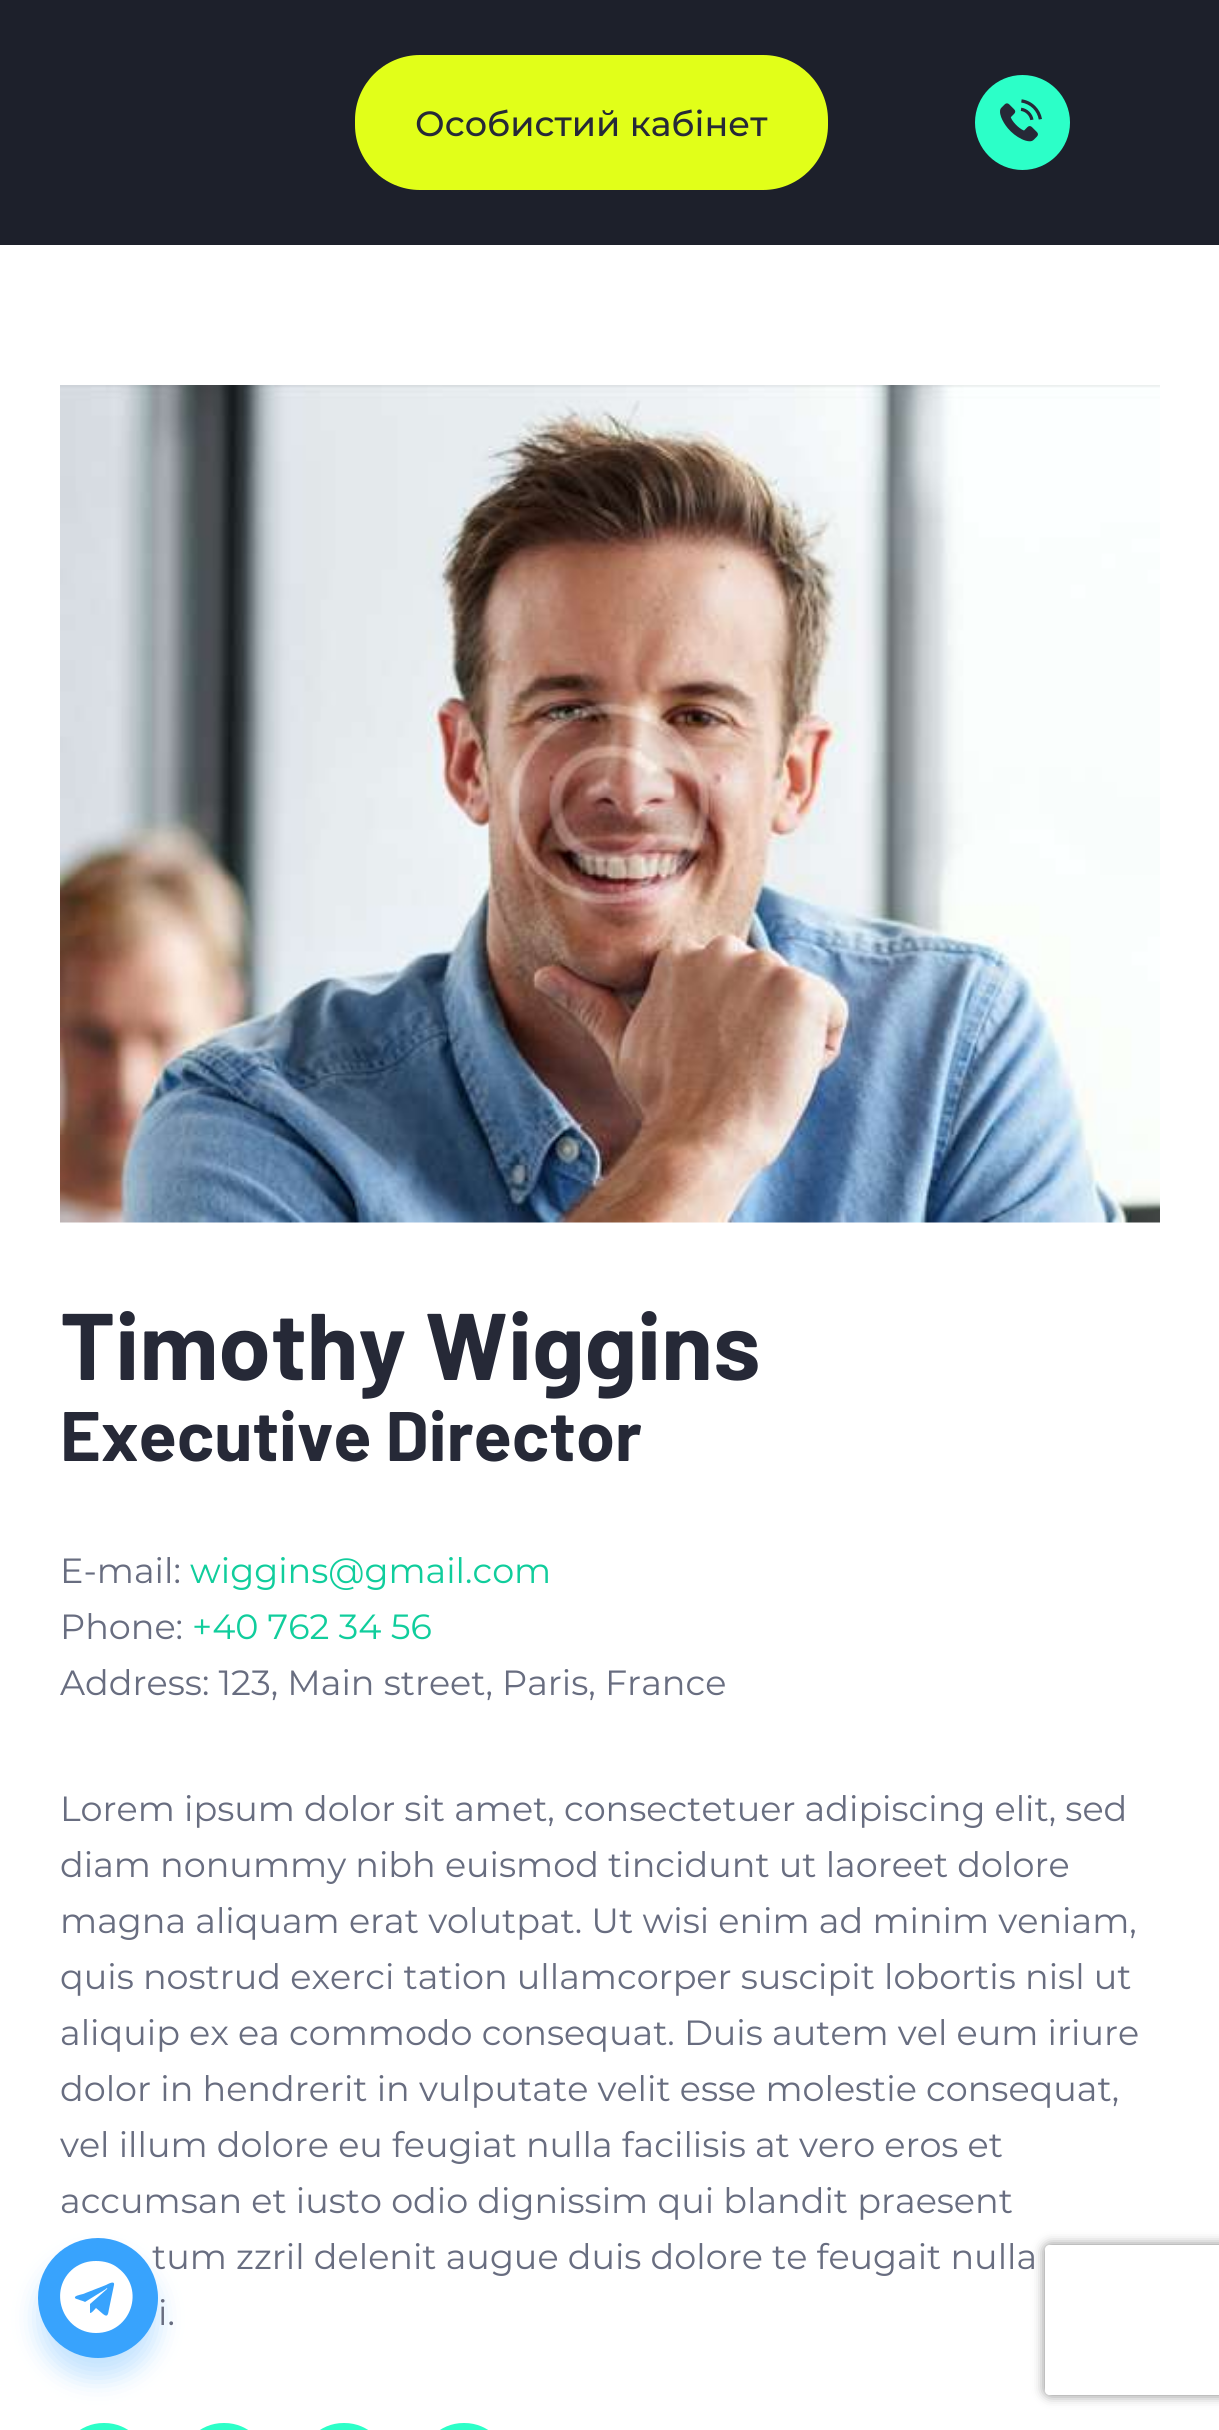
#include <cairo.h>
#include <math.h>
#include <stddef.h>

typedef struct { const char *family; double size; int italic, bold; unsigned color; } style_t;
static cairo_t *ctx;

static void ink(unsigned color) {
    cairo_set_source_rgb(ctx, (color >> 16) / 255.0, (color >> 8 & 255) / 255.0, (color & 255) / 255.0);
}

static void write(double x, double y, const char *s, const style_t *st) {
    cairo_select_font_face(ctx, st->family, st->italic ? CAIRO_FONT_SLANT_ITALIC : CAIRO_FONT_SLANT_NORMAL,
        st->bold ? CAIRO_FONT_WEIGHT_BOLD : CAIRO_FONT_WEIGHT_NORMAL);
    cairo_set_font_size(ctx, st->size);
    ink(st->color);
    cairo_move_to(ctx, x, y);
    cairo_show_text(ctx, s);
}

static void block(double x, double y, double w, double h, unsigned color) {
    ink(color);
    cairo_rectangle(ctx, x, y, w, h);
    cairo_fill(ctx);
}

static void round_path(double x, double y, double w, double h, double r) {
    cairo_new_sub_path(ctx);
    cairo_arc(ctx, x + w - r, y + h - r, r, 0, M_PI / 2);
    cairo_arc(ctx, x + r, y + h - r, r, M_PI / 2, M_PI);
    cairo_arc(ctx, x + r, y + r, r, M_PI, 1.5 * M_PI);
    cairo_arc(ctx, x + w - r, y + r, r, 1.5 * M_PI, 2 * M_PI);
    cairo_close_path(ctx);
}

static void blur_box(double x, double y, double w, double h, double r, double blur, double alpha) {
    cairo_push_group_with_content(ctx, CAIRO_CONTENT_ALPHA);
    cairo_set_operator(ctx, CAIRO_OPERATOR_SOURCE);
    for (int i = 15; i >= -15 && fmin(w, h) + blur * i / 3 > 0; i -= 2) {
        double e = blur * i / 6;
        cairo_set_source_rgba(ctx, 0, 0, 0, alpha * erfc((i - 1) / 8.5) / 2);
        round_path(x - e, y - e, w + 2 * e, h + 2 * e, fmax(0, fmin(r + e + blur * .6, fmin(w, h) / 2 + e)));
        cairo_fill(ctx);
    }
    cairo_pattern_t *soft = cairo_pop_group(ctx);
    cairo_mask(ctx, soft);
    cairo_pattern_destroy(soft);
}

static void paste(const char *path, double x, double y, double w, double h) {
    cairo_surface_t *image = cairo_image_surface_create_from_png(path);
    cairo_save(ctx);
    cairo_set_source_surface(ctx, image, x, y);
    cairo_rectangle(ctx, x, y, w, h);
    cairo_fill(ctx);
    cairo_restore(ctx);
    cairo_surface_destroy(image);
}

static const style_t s1 = {"Montserrat Medium", 35, 0, 0, 0x262937};
static const style_t s2 = {"Montserrat", 35, 0, 0, 0x686d80};
static const style_t s3 = {"Barlow", 94.5, 0, 1, 0x262937};
static const style_t s4 = {"Barlow", 70, 0, 1, 0x262937};
static const style_t s5 = {"Montserrat", 35, 0, 0, 0x10cd9c};

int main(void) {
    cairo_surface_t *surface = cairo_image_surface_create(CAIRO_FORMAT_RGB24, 1219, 2430);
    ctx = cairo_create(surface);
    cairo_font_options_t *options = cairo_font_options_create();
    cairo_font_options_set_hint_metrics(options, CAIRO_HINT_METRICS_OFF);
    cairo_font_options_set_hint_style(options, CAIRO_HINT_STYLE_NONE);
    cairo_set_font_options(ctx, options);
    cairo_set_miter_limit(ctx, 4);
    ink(0x1d202b);
    cairo_paint(ctx);
    ink(0xe1ff19);
    round_path(355, 55, 473, 135, 65);
    cairo_fill(ctx);
    write(415, 136, "Особистий кабінет", &s1);
    ink(0x2cffc8);
    cairo_new_path(ctx);
    cairo_arc(ctx, 1022.5, 122.5, 47.5, 0, 2 * M_PI);
    cairo_fill(ctx);
    paste("pic1.png", 1000, 99, 42, 43);
    block(0, 245, 1219, 2185, 0xffffff);
    ink(0x38a3fd);
    blur_box(38, 2258, 120, 120, 60, 12.5, 0.3);
    write(152, 2269, "tum zzril delenit augue duis dolore te feugait nulla", &s2);
    ink(0x38a3fd);
    cairo_new_path(ctx);
    cairo_arc(ctx, 98, 2298, 57.5, 0, 2 * M_PI);
    cairo_fill_preserve(ctx);
    cairo_set_line_width(ctx, 5);
    cairo_stroke(ctx);
    ink(0xffffff);
    cairo_new_path(ctx);
    cairo_move_to(ctx, 96, 2261);
    cairo_curve_to(ctx, 104, 2261, 112, 2263, 118, 2268);
    cairo_curve_to(ctx, 146, 2289, 131, 2333, 96, 2333);
    cairo_curve_to(ctx, 62, 2333, 47, 2289, 74, 2268);
    cairo_curve_to(ctx, 81, 2263, 88, 2261, 96, 2261);
    cairo_close_path(ctx);
    cairo_move_to(ctx, 114, 2285);
    cairo_curve_to(ctx, 115, 2280, 108, 2284, 106, 2285);
    cairo_line_to(ctx, 83, 2294);
    cairo_curve_to(ctx, 79, 2295, 74, 2296, 75, 2298);
    cairo_curve_to(ctx, 75, 2299, 84, 2301, 85, 2302);
    cairo_line_to(ctx, 106, 2289);
    cairo_curve_to(ctx, 106, 2288, 108, 2288, 107, 2289);
    cairo_line_to(ctx, 90, 2304);
    cairo_line_to(ctx, 90, 2313);
    cairo_curve_to(ctx, 92, 2313, 94, 2310, 96, 2308);
    cairo_line_to(ctx, 103, 2314);
    cairo_curve_to(ctx, 108, 2318, 108, 2314, 109, 2309);
    cairo_close_path(ctx);
    cairo_fill(ctx);
    paste("pic2.png", 60, 385, 1100, 838);
    write(60, 1380, "Timothy Wiggins", &s3);
    write(60, 1461, "Executive Director", &s4);
    write(60, 1583, "E-mail:", &s2);
    write(190, 1583, "wiggins@gmail.com", &s5);
    write(60, 1639, "Phone:", &s2);
    write(192, 1639, "+40 762 34 56", &s5);
    write(60, 1695, "Address: 123, Main street, Paris, France", &s2);
    write(60, 1821, "Lorem ipsum dolor sit amet, consectetuer adipiscing elit, sed", &s2);
    write(60, 1877, "diam nonummy nibh euismod tincidunt ut laoreet dolore", &s2);
    write(60, 1933, "magna aliquam erat volutpat. Ut wisi enim ad minim veniam,", &s2);
    write(60, 1989, "quis nostrud exerci tation ullamcorper suscipit lobortis nisl ut", &s2);
    write(60, 2045, "aliquip ex ea commodo consequat. Duis autem vel eum iriure", &s2);
    write(60, 2101, "dolor in hendrerit in vulputate velit esse molestie consequat,", &s2);
    write(60, 2157, "vel illum dolore eu feugiat nulla facilisis at vero eros et", &s2);
    write(60, 2213, "accumsan et iusto odio dignissim qui blandit praesent", &s2);
    write(158, 2325, "i.", &s2);
    ink(0x2cffc8);
    round_path(60, 2423, 88, 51, 43.5);
    cairo_fill(ctx);
    round_path(180, 2423, 88, 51, 43.5);
    cairo_fill(ctx);
    round_path(300, 2423, 88, 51, 43.5);
    cairo_fill(ctx);
    round_path(420, 2423, 88, 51, 43.5);
    cairo_fill(ctx);
    cairo_save(ctx);
    cairo_set_fill_rule(ctx, CAIRO_FILL_RULE_EVEN_ODD);
    cairo_new_path(ctx);
    cairo_move_to(ctx, 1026, 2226);
    cairo_line_to(ctx, 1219, 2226);
    cairo_line_to(ctx, 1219, 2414);
    cairo_line_to(ctx, 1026, 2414);
    cairo_close_path(ctx);
    cairo_move_to(ctx, 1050, 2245);
    cairo_line_to(ctx, 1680, 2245);
    cairo_curve_to(ctx, 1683, 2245, 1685, 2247, 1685, 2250);
    cairo_line_to(ctx, 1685, 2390);
    cairo_curve_to(ctx, 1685, 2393, 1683, 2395, 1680, 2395);
    cairo_line_to(ctx, 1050, 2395);
    cairo_curve_to(ctx, 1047, 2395, 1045, 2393, 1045, 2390);
    cairo_line_to(ctx, 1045, 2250);
    cairo_curve_to(ctx, 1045, 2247, 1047, 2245, 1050, 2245);
    cairo_close_path(ctx);
    cairo_clip(ctx);
    ink(0x808080);
    blur_box(1045, 2245, 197, 150, 5, 6, 1);
    cairo_restore(ctx);
    cairo_surface_write_to_png(surface, "screenshot.png");
    cairo_font_options_destroy(options);
    cairo_destroy(ctx);
    cairo_surface_destroy(surface);
    return 0;
}
